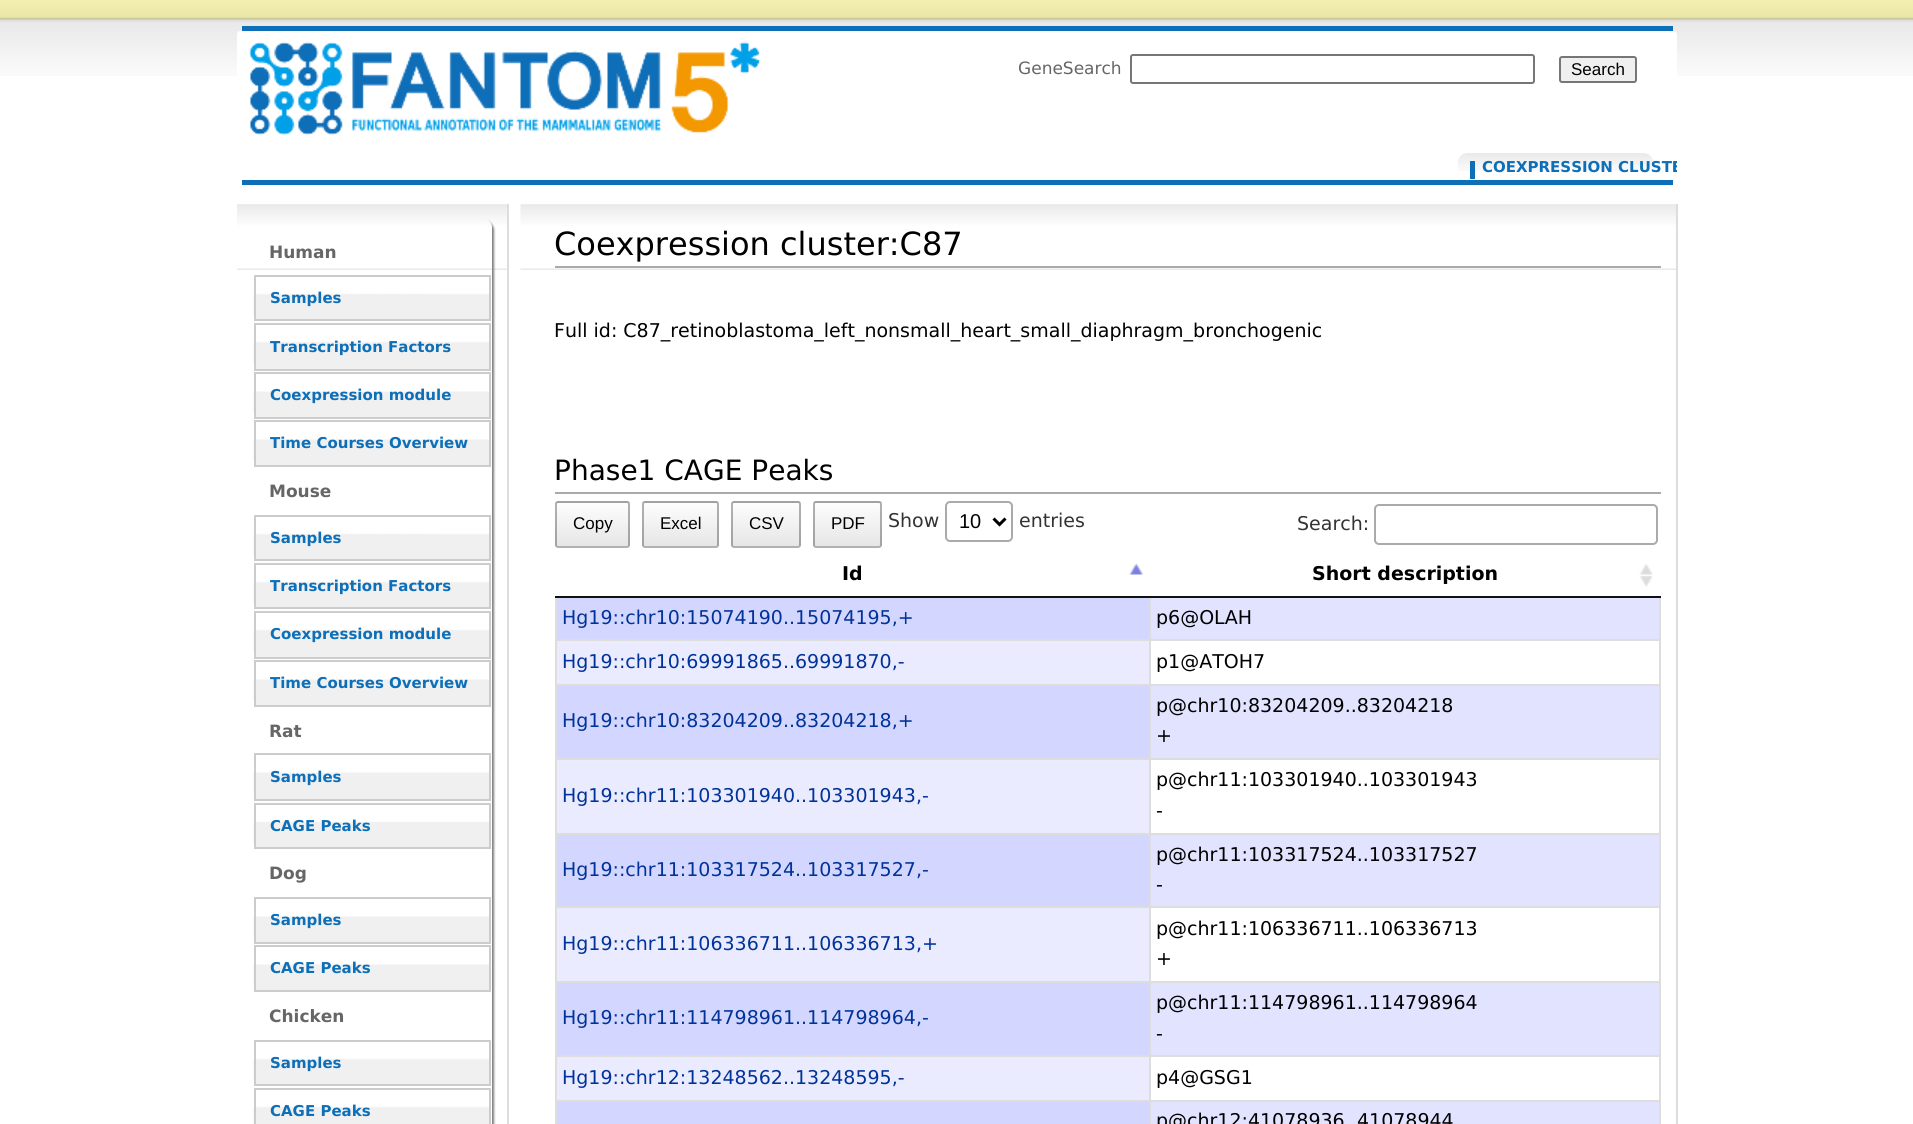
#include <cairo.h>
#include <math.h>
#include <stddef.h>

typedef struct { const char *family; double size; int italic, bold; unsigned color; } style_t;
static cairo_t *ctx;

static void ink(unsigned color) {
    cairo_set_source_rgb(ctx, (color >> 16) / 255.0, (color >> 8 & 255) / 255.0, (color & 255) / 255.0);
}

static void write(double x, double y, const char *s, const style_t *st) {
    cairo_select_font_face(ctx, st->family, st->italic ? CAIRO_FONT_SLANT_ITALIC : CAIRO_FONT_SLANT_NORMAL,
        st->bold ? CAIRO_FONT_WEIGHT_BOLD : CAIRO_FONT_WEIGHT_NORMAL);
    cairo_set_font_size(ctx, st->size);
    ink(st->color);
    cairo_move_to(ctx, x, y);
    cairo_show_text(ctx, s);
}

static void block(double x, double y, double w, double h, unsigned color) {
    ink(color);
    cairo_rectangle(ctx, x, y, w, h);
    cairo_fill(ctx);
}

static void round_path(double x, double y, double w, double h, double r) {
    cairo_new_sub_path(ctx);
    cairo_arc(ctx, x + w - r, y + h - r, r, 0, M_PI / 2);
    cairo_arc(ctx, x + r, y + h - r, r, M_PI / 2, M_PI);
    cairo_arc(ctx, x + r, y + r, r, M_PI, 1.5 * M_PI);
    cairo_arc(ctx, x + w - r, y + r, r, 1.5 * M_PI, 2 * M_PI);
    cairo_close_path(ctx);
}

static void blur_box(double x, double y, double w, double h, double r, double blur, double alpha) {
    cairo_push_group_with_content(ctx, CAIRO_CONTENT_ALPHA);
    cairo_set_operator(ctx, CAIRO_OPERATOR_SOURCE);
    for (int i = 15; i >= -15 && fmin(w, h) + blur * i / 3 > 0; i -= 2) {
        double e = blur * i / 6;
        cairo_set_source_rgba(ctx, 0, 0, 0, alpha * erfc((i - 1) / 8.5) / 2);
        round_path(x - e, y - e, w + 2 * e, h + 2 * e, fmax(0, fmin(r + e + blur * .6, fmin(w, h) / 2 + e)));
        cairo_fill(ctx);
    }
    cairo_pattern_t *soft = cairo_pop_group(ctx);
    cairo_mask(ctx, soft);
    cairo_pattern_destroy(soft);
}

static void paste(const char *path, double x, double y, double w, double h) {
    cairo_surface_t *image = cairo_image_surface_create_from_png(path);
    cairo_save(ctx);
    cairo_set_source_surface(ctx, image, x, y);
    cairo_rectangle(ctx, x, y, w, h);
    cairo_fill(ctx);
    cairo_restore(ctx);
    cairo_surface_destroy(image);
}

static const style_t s1 = {"DejaVu Sans", 17, 0, 0, 0x666666};
static const style_t s2 = {"Liberation Sans", 17, 0, 0, 0x000000};
static const style_t s3 = {"DejaVu Sans", 15, 0, 1, 0x0d6fb8};
static const style_t s4 = {"DejaVu Sans", 17, 0, 1, 0x666666};
static const style_t s5 = {"DejaVu Sans", 32, 0, 0, 0x000000};
static const style_t s6 = {"DejaVu Sans", 19, 0, 0, 0x000000};
static const style_t s7 = {"DejaVu Sans", 28, 0, 0, 0x000000};
static const style_t s8 = {"DejaVu Sans", 19, 0, 0, 0x333333};
static const style_t s9 = {"Liberation Sans", 20, 0, 0, 0x000000};
static const style_t s10 = {"DejaVu Sans", 19, 0, 1, 0x000000};
static const style_t s11 = {"DejaVu Sans", 19, 0, 0, 0x003399};

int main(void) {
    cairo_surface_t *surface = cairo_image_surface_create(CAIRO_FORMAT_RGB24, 1913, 1124);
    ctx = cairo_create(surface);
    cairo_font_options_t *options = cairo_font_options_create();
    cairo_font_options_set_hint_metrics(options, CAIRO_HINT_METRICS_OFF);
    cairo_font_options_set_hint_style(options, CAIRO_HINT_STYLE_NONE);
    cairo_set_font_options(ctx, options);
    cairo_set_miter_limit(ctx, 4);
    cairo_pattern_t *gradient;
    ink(0xffffff);
    cairo_paint(ctx);
    paste("pic1.png", 0, 0, 1913, 76);
    ink(0xffffff);
    cairo_new_path(ctx);
    cairo_move_to(ctx, 246, 30);
    cairo_line_to(ctx, 1668, 30);
    cairo_curve_to(ctx, 1673, 30, 1677, 32, 1677, 34);
    cairo_line_to(ctx, 1677, 176);
    cairo_curve_to(ctx, 1677, 178, 1673, 180, 1668, 180);
    cairo_line_to(ctx, 246, 180);
    cairo_curve_to(ctx, 241, 180, 237, 178, 237, 176);
    cairo_line_to(ctx, 237, 34);
    cairo_curve_to(ctx, 237, 32, 241, 30, 246, 30);
    cairo_close_path(ctx);
    cairo_fill(ctx);
    paste("pic2.png", 249, 41, 512, 95);
    block(242, 26, 1431, 5, 0x0d6fb8);
    block(242, 180, 1431, 5, 0x0d6fb8);
    write(1018, 74, "GeneSearch", &s1);
    round_path(1131, 55, 403, 28, 2);
    ink(0x767676);
    cairo_stroke(ctx);
    ink(0xefefef);
    round_path(1560, 57, 76, 25, 2);
    cairo_fill_preserve(ctx);
    ink(0x767676);
    cairo_stroke(ctx);
    write(1571, 75, "Search", &s2);
    paste("pic3.png", 1458, 153, 195, 18);
    block(1470, 161, 5, 18, 0x0d6fb8);
    cairo_save(ctx);
    cairo_rectangle(ctx, 1421, 146, 256, 42);
    cairo_clip(ctx);
    write(1482, 172, "COEXPRESSION CLUSTE", &s3);
    cairo_restore(ctx);
    paste("pic4.png", 237, 204, 270, 66);
    block(507, 204, 2, 920, 0xdddddd);
    cairo_save(ctx);
    cairo_set_fill_rule(ctx, CAIRO_FILL_RULE_EVEN_ODD);
    cairo_new_path(ctx);
    cairo_move_to(ctx, 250, 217);
    cairo_line_to(ctx, 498, 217);
    cairo_line_to(ctx, 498, 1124);
    cairo_line_to(ctx, 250, 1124);
    cairo_close_path(ctx);
    cairo_move_to(ctx, 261, 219);
    cairo_line_to(ctx, 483, 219);
    cairo_curve_to(ctx, 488, 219, 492, 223, 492, 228);
    cairo_line_to(ctx, 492, 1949);
    cairo_curve_to(ctx, 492, 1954, 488, 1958, 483, 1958);
    cairo_line_to(ctx, 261, 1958);
    cairo_curve_to(ctx, 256, 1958, 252, 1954, 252, 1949);
    cairo_line_to(ctx, 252, 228);
    cairo_curve_to(ctx, 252, 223, 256, 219, 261, 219);
    cairo_close_path(ctx);
    cairo_clip(ctx);
    ink(0x808080);
    blur_box(254, 221, 240, 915, 9, 1, 1);
    cairo_restore(ctx);
    write(269, 258, "Human", &s4);
    block(256, 315, 233, 4, 0xf0f0f0);
    paste("pic5.png", 253, 276, 236, 39);
    cairo_rectangle(ctx, 255, 276, 235, 44);
    ink(0xcccccc);
    cairo_stroke(ctx);
    write(270, 303, "Samples", &s3);
    block(256, 363, 233, 6, 0xf0f0f0);
    paste("pic5.png", 253, 324, 236, 39);
    cairo_rectangle(ctx, 255, 324, 235, 46);
    ink(0xcccccc);
    cairo_stroke(ctx);
    write(270, 352, "Transcription Factors", &s3);
    block(256, 412, 233, 5, 0xf0f0f0);
    paste("pic6.png", 253, 373, 236, 40);
    cairo_rectangle(ctx, 255, 373, 235, 45);
    ink(0xcccccc);
    cairo_stroke(ctx);
    write(270, 400, "Coexpression module", &s3);
    block(256, 460, 233, 5, 0xf0f0f0);
    paste("pic6.png", 253, 421, 236, 40);
    cairo_rectangle(ctx, 255, 421, 235, 45);
    ink(0xcccccc);
    cairo_stroke(ctx);
    write(270, 448, "Time Courses Overview", &s3);
    write(269, 497, "Mouse", &s4);
    block(256, 555, 233, 4, 0xf0f0f0);
    paste("pic5.png", 253, 516, 236, 39);
    cairo_rectangle(ctx, 255, 516, 235, 44);
    ink(0xcccccc);
    cairo_stroke(ctx);
    write(270, 543, "Samples", &s3);
    block(256, 603, 233, 4, 0xf0f0f0);
    paste("pic7.png", 253, 564, 236, 39);
    cairo_rectangle(ctx, 255, 564, 235, 44);
    ink(0xcccccc);
    cairo_stroke(ctx);
    write(270, 591, "Transcription Factors", &s3);
    block(256, 651, 233, 6, 0xf0f0f0);
    paste("pic8.png", 253, 612, 236, 39);
    cairo_rectangle(ctx, 255, 612, 235, 46);
    ink(0xcccccc);
    cairo_stroke(ctx);
    write(270, 639, "Coexpression module", &s3);
    block(256, 700, 233, 5, 0xf0f0f0);
    paste("pic9.png", 253, 661, 236, 40);
    cairo_rectangle(ctx, 255, 661, 235, 45);
    ink(0xcccccc);
    cairo_stroke(ctx);
    write(270, 688, "Time Courses Overview", &s3);
    write(269, 737, "Rat", &s4);
    block(256, 793, 233, 6, 0xf0f0f0);
    paste("pic6.png", 253, 754, 236, 40);
    cairo_rectangle(ctx, 255, 754, 235, 46);
    ink(0xcccccc);
    cairo_stroke(ctx);
    write(270, 782, "Samples", &s3);
    block(256, 843, 233, 4, 0xf0f0f0);
    paste("pic10.png", 253, 804, 236, 39);
    cairo_rectangle(ctx, 255, 804, 235, 44);
    ink(0xcccccc);
    cairo_stroke(ctx);
    write(270, 831, "CAGE Peaks", &s3);
    write(269, 879, "Dog", &s4);
    block(256, 937, 233, 5, 0xf0f0f0);
    paste("pic11.png", 253, 898, 236, 40);
    cairo_rectangle(ctx, 255, 898, 235, 45);
    ink(0xcccccc);
    cairo_stroke(ctx);
    write(270, 925, "Samples", &s3);
    block(256, 985, 233, 5, 0xf0f0f0);
    paste("pic11.png", 253, 946, 236, 40);
    cairo_rectangle(ctx, 255, 946, 235, 45);
    ink(0xcccccc);
    cairo_stroke(ctx);
    write(270, 973, "CAGE Peaks", &s3);
    write(269, 1022, "Chicken", &s4);
    block(256, 1080, 233, 4, 0xf0f0f0);
    paste("pic7.png", 253, 1041, 236, 39);
    cairo_rectangle(ctx, 255, 1041, 235, 44);
    ink(0xcccccc);
    cairo_stroke(ctx);
    write(270, 1068, "Samples", &s3);
    paste("pic12.png", 253, 1089, 236, 35);
    cairo_rectangle(ctx, 255, 1089, 235, 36);
    ink(0xcccccc);
    cairo_stroke(ctx);
    write(270, 1116, "CAGE Peaks", &s3);
    paste("pic13.png", 520, 204, 1156, 66);
    block(1676, 204, 2, 920, 0xdddddd);
    block(555, 266, 1106, 2, 0xaaaaaa);
    write(554, 255, "Coexpression cluster:C87", &s5);
    write(554, 337, "Full id: C87_retinoblastoma_left_nonsmall_heart_small_diaphragm_bronchogenic", &s6);
    block(555, 492, 1106, 2, 0xaaaaaa);
    write(554, 480, "Phase1 CAGE Peaks", &s7);
    cairo_save(ctx);
    round_path(555, 501, 75, 47, 3);
    cairo_clip(ctx);
    gradient = cairo_pattern_create_linear(593, 459, 593, 503);
    cairo_pattern_add_color_stop_rgba(gradient, 0, 0.992, 0.992, 0.992, 1);
    cairo_pattern_add_color_stop_rgba(gradient, 1, 0.902, 0.902, 0.902, 1);
    cairo_set_source(ctx, gradient);
    cairo_pattern_destroy(gradient);
    cairo_rectangle(ctx, 555, 501, 75, 2);
    cairo_fill(ctx);
    gradient = cairo_pattern_create_linear(593, 503, 593, 546);
    cairo_pattern_add_color_stop_rgba(gradient, 0, 0.992, 0.992, 0.992, 1);
    cairo_pattern_add_color_stop_rgba(gradient, 1, 0.902, 0.902, 0.902, 1);
    cairo_set_source(ctx, gradient);
    cairo_pattern_destroy(gradient);
    cairo_rectangle(ctx, 555, 503, 75, 43);
    cairo_fill(ctx);
    gradient = cairo_pattern_create_linear(593, 546, 593, 590);
    cairo_pattern_add_color_stop_rgba(gradient, 0, 0.992, 0.992, 0.992, 1);
    cairo_pattern_add_color_stop_rgba(gradient, 1, 0.902, 0.902, 0.902, 1);
    cairo_set_source(ctx, gradient);
    cairo_pattern_destroy(gradient);
    cairo_rectangle(ctx, 555, 546, 75, 2);
    cairo_fill(ctx);
    cairo_restore(ctx);
    round_path(556, 502, 73, 45, 2);
    cairo_set_source_rgba(ctx, 0, 0, 0, 0.3);
    cairo_stroke(ctx);
    write(573, 529, "Copy", &s2);
    cairo_save(ctx);
    round_path(642, 501, 77, 47, 3);
    cairo_clip(ctx);
    gradient = cairo_pattern_create_linear(680, 459, 680, 503);
    cairo_pattern_add_color_stop_rgba(gradient, 0, 0.992, 0.992, 0.992, 1);
    cairo_pattern_add_color_stop_rgba(gradient, 1, 0.902, 0.902, 0.902, 1);
    cairo_set_source(ctx, gradient);
    cairo_pattern_destroy(gradient);
    cairo_rectangle(ctx, 642, 501, 77, 2);
    cairo_fill(ctx);
    gradient = cairo_pattern_create_linear(680, 503, 680, 546);
    cairo_pattern_add_color_stop_rgba(gradient, 0, 0.992, 0.992, 0.992, 1);
    cairo_pattern_add_color_stop_rgba(gradient, 1, 0.902, 0.902, 0.902, 1);
    cairo_set_source(ctx, gradient);
    cairo_pattern_destroy(gradient);
    cairo_rectangle(ctx, 642, 503, 77, 43);
    cairo_fill(ctx);
    gradient = cairo_pattern_create_linear(680, 546, 680, 590);
    cairo_pattern_add_color_stop_rgba(gradient, 0, 0.992, 0.992, 0.992, 1);
    cairo_pattern_add_color_stop_rgba(gradient, 1, 0.902, 0.902, 0.902, 1);
    cairo_set_source(ctx, gradient);
    cairo_pattern_destroy(gradient);
    cairo_rectangle(ctx, 642, 546, 77, 2);
    cairo_fill(ctx);
    cairo_restore(ctx);
    round_path(643, 502, 75, 45, 2);
    cairo_set_source_rgba(ctx, 0, 0, 0, 0.3);
    cairo_stroke(ctx);
    write(660, 529, "Excel", &s2);
    cairo_save(ctx);
    round_path(731, 501, 70, 47, 3);
    cairo_clip(ctx);
    gradient = cairo_pattern_create_linear(766, 459, 766, 503);
    cairo_pattern_add_color_stop_rgba(gradient, 0, 0.992, 0.992, 0.992, 1);
    cairo_pattern_add_color_stop_rgba(gradient, 1, 0.902, 0.902, 0.902, 1);
    cairo_set_source(ctx, gradient);
    cairo_pattern_destroy(gradient);
    cairo_rectangle(ctx, 731, 501, 70, 2);
    cairo_fill(ctx);
    gradient = cairo_pattern_create_linear(766, 503, 766, 546);
    cairo_pattern_add_color_stop_rgba(gradient, 0, 0.992, 0.992, 0.992, 1);
    cairo_pattern_add_color_stop_rgba(gradient, 1, 0.902, 0.902, 0.902, 1);
    cairo_set_source(ctx, gradient);
    cairo_pattern_destroy(gradient);
    cairo_rectangle(ctx, 731, 503, 70, 43);
    cairo_fill(ctx);
    gradient = cairo_pattern_create_linear(766, 546, 766, 590);
    cairo_pattern_add_color_stop_rgba(gradient, 0, 0.992, 0.992, 0.992, 1);
    cairo_pattern_add_color_stop_rgba(gradient, 1, 0.902, 0.902, 0.902, 1);
    cairo_set_source(ctx, gradient);
    cairo_pattern_destroy(gradient);
    cairo_rectangle(ctx, 731, 546, 70, 2);
    cairo_fill(ctx);
    cairo_restore(ctx);
    round_path(732, 502, 68, 45, 2);
    cairo_set_source_rgba(ctx, 0, 0, 0, 0.3);
    cairo_stroke(ctx);
    write(749, 529, "CSV", &s2);
    cairo_save(ctx);
    round_path(813, 501, 69, 47, 3);
    cairo_clip(ctx);
    gradient = cairo_pattern_create_linear(848, 459, 848, 503);
    cairo_pattern_add_color_stop_rgba(gradient, 0, 0.992, 0.992, 0.992, 1);
    cairo_pattern_add_color_stop_rgba(gradient, 1, 0.902, 0.902, 0.902, 1);
    cairo_set_source(ctx, gradient);
    cairo_pattern_destroy(gradient);
    cairo_rectangle(ctx, 813, 501, 69, 2);
    cairo_fill(ctx);
    gradient = cairo_pattern_create_linear(848, 503, 848, 546);
    cairo_pattern_add_color_stop_rgba(gradient, 0, 0.992, 0.992, 0.992, 1);
    cairo_pattern_add_color_stop_rgba(gradient, 1, 0.902, 0.902, 0.902, 1);
    cairo_set_source(ctx, gradient);
    cairo_pattern_destroy(gradient);
    cairo_rectangle(ctx, 813, 503, 69, 43);
    cairo_fill(ctx);
    gradient = cairo_pattern_create_linear(848, 546, 848, 590);
    cairo_pattern_add_color_stop_rgba(gradient, 0, 0.992, 0.992, 0.992, 1);
    cairo_pattern_add_color_stop_rgba(gradient, 1, 0.902, 0.902, 0.902, 1);
    cairo_set_source(ctx, gradient);
    cairo_pattern_destroy(gradient);
    cairo_rectangle(ctx, 813, 546, 69, 2);
    cairo_fill(ctx);
    cairo_restore(ctx);
    round_path(814, 502, 67, 45, 2);
    cairo_set_source_rgba(ctx, 0, 0, 0, 0.3);
    cairo_stroke(ctx);
    write(831, 529, "PDF", &s2);
    write(888, 527, "Show", &s8);
    round_path(946, 502, 66, 39, 4);
    ink(0xaaaaaa);
    cairo_stroke(ctx);
    cairo_new_path(ctx);
    cairo_move_to(ctx, 993.5, 518.5);
    cairo_line_to(ctx, 999.5, 524.5);
    cairo_line_to(ctx, 1005.5, 518.5);
    ink(0x000000);
    cairo_set_line_width(ctx, 3);
    cairo_stroke(ctx);
    write(959, 528, "10", &s9);
    write(1019, 527, "entries", &s8);
    write(1297, 530, "Search:", &s8);
    round_path(1375, 505, 282, 39, 4);
    ink(0xaaaaaa);
    cairo_set_line_width(ctx, 2);
    cairo_stroke(ctx);
    paste("pic14.png", 1129, 563, 15, 12);
    block(1149, 597, 2, 42, 0xdddddd);
    block(555, 597, 2, 42, 0xdddddd);
    block(1659, 597, 2, 42, 0xdddddd);
    block(555, 596, 1106, 2, 0x111111);
    write(842, 580, "Id", &s10);
    paste("pic15.png", 1639, 564, 14, 23);
    write(1312, 580, "Short description", &s10);
    block(1151, 598, 508, 41, 0xe2e4ff);
    block(557, 598, 592, 41, 0xd3d6ff);
    write(562, 624, "Hg19::chr10:15074190..15074195,+", &s11);
    write(1156, 624, "p6@OLAH", &s6);
    block(557, 641, 592, 43, 0xeaebff);
    block(555, 639, 1106, 2, 0xdddddd);
    block(1149, 639, 2, 45, 0xdddddd);
    block(555, 639, 2, 45, 0xdddddd);
    write(562, 668, "Hg19::chr10:69991865..69991870,-", &s11);
    block(1659, 639, 2, 45, 0xdddddd);
    write(1156, 668, "p1@ATOH7", &s6);
    block(1151, 686, 508, 72, 0xe2e4ff);
    block(557, 686, 592, 72, 0xd3d6ff);
    block(555, 684, 1106, 2, 0xdddddd);
    block(1149, 684, 2, 74, 0xdddddd);
    block(555, 684, 2, 74, 0xdddddd);
    write(562, 727, "Hg19::chr10:83204209..83204218,+", &s11);
    block(1659, 684, 2, 74, 0xdddddd);
    write(1156, 712, "p@chr10:83204209..83204218", &s6);
    write(1156, 742, "+", &s6);
    block(557, 760, 592, 73, 0xeaebff);
    block(555, 758, 1106, 2, 0xdddddd);
    block(1149, 758, 2, 75, 0xdddddd);
    block(555, 758, 2, 75, 0xdddddd);
    write(562, 802, "Hg19::chr11:103301940..103301943,-", &s11);
    block(1659, 758, 2, 75, 0xdddddd);
    write(1156, 786, "p@chr11:103301940..103301943", &s6);
    write(1156, 817, "-", &s6);
    block(1151, 835, 508, 71, 0xe2e4ff);
    block(557, 835, 592, 71, 0xd3d6ff);
    block(555, 833, 1106, 2, 0xdddddd);
    block(1149, 833, 2, 73, 0xdddddd);
    block(555, 833, 2, 73, 0xdddddd);
    write(562, 876, "Hg19::chr11:103317524..103317527,-", &s11);
    block(1659, 833, 2, 73, 0xdddddd);
    write(1156, 861, "p@chr11:103317524..103317527", &s6);
    write(1156, 891, "-", &s6);
    block(557, 908, 592, 73, 0xeaebff);
    block(555, 906, 1106, 2, 0xdddddd);
    block(1149, 906, 2, 75, 0xdddddd);
    block(555, 906, 2, 75, 0xdddddd);
    write(562, 950, "Hg19::chr11:106336711..106336713,+", &s11);
    block(1659, 906, 2, 75, 0xdddddd);
    write(1156, 935, "p@chr11:106336711..106336713", &s6);
    write(1156, 965, "+", &s6);
    block(1151, 983, 508, 72, 0xe2e4ff);
    block(557, 983, 592, 72, 0xd3d6ff);
    block(555, 981, 1106, 2, 0xdddddd);
    block(1149, 981, 2, 74, 0xdddddd);
    block(555, 981, 2, 74, 0xdddddd);
    write(562, 1024, "Hg19::chr11:114798961..114798964,-", &s11);
    block(1659, 981, 2, 74, 0xdddddd);
    write(1156, 1009, "p@chr11:114798961..114798964", &s6);
    write(1156, 1040, "-", &s6);
    block(557, 1057, 592, 43, 0xeaebff);
    block(555, 1055, 1106, 2, 0xdddddd);
    block(1149, 1055, 2, 45, 0xdddddd);
    block(555, 1055, 2, 45, 0xdddddd);
    write(562, 1084, "Hg19::chr12:13248562..13248595,-", &s11);
    block(1659, 1055, 2, 45, 0xdddddd);
    write(1156, 1084, "p4@GSG1", &s6);
    block(1151, 1102, 508, 22, 0xe2e4ff);
    block(557, 1102, 592, 22, 0xd3d6ff);
    block(555, 1100, 1106, 2, 0xdddddd);
    block(1149, 1100, 2, 24, 0xdddddd);
    block(555, 1100, 2, 24, 0xdddddd);
    block(1659, 1100, 2, 24, 0xdddddd);
    write(1156, 1127, "p@chr12:41078936", &s6);
    write(1357, 1127, "41078944", &s6);
    cairo_surface_write_to_png(surface, "screenshot.png");
    cairo_font_options_destroy(options);
    cairo_destroy(ctx);
    cairo_surface_destroy(surface);
    return 0;
}
